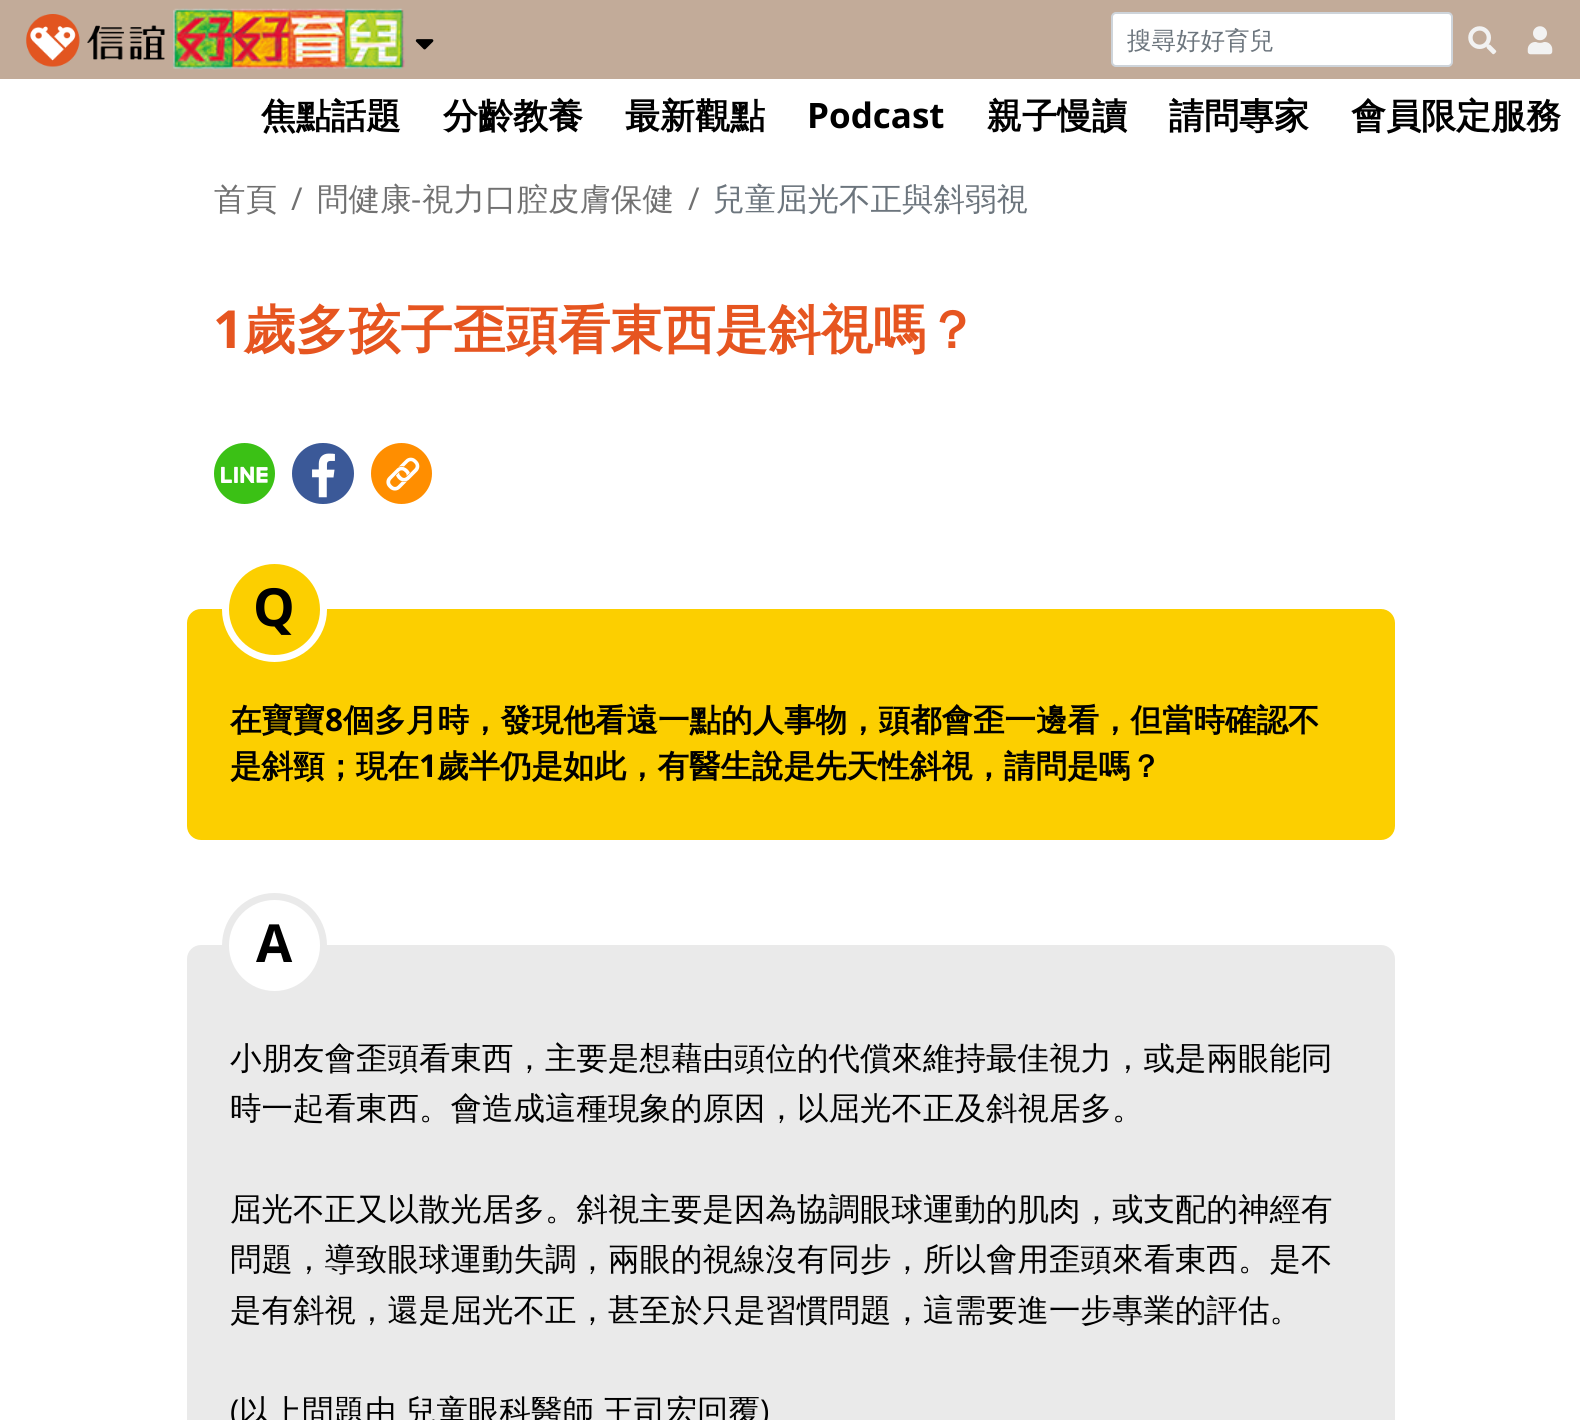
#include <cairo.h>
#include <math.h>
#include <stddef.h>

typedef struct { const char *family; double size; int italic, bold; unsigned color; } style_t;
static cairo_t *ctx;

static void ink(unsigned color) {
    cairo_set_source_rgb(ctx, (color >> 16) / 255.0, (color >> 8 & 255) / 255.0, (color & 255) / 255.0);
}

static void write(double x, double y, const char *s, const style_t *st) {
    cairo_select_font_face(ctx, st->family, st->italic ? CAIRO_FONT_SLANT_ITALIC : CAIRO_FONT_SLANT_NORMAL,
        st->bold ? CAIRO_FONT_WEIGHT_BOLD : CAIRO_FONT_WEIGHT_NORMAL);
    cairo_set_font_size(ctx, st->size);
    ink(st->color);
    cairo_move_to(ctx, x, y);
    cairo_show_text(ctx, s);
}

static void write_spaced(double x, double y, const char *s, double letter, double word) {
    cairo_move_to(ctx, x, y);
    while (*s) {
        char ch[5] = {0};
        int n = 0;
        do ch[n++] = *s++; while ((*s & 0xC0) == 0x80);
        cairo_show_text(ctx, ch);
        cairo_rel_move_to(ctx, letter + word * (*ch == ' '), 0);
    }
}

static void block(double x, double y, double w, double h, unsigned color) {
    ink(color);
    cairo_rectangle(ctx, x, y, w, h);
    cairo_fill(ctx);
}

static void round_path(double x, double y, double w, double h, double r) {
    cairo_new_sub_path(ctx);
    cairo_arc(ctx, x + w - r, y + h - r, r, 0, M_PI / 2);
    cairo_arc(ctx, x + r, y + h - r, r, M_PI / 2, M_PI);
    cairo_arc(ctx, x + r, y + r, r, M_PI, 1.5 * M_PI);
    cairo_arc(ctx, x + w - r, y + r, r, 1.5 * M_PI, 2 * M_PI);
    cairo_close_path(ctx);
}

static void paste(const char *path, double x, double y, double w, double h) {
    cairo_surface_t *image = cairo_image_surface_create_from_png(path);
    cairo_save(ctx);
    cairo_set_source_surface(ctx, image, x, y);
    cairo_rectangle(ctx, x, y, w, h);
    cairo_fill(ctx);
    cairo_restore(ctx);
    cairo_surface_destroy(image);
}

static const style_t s1 = {"WenQuanYi Zen Hei Medium", 24.5, 0, 0, 0x6c757d};
static const style_t s2 = {"WenQuanYi Zen Hei", 35, 0, 1, 0x000000};
static const style_t s3 = {"Open Sans", 35, 0, 1, 0x000000};
static const style_t s4 = {"WenQuanYi Zen Hei Medium", 31.5, 0, 0, 0x717171};
static const style_t s5 = {"Open Sans", 31.5, 0, 0, 0x717171};
static const style_t s6 = {"WenQuanYi Zen Hei Medium", 31.5, 0, 0, 0x6c757d};
static const style_t s7 = {"Open Sans", 52.5, 0, 1, 0xe65520};
static const style_t s8 = {"WenQuanYi Zen Hei", 52.5, 0, 1, 0xe65520};
static const style_t s9 = {"Open Sans", 52.5, 0, 1, 0x000000};
static const style_t s10 = {"WenQuanYi Zen Hei", 31.5, 0, 1, 0x000000};
static const style_t s11 = {"Open Sans", 31.5, 0, 1, 0x000000};
static const style_t s12 = {"WenQuanYi Zen Hei Medium", 31.5, 0, 0, 0x000000};
static const style_t s13 = {"Open Sans", 31.5, 0, 0, 0x000000};

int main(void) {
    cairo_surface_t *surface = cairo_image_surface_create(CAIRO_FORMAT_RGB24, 1580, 1420);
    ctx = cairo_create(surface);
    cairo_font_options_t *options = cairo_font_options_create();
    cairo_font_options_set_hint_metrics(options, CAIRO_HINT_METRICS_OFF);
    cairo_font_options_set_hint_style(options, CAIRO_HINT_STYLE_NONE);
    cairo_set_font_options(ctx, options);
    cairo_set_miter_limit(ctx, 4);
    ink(0xffffff);
    cairo_paint(ctx);
    block(0, 0, 1580, 79, 0xc2ab99);
    paste("pic1.png", 26, 14, 139, 53);
    paste("pic2.png", 173, 8, 232, 62);
    paste("pic3.png", 415, 39, 19, 11);
    ink(0xffffff);
    round_path(1112, 13, 340, 53, 4);
    cairo_fill_preserve(ctx);
    ink(0xced4da);
    cairo_stroke(ctx);
    write(1127, 49, "搜尋好好育兒", &s1);
    paste("pic4.png", 1468, 26, 29, 29);
    paste("pic5.png", 1527, 26, 26, 29);
    write(261, 128, "焦點話題", &s2);
    write(443, 128, "分齡教養", &s2);
    write(625, 128, "最新觀點", &s2);
    write(807, 128, "Podcast", &s3);
    write(987, 128, "親子慢讀", &s2);
    write(1169, 128, "請問專家", &s2);
    write(1351, 128, "會員限定服務", &s2);
    write(214, 210, "首頁", &s4);
    write(291, 210, "/", &s5);
    write(317, 210, "問健康", &s4);
    write(411, 210, "-", &s5);
    write(422, 210, "視力口腔皮膚保健", &s4);
    write(688, 210, "/", &s5);
    write(713, 210, "兒童屈光不正與斜弱視", &s6);
    write(213, 348, "1", &s7);
    write(243, 348, "歲多孩子歪頭看東西是斜視嗎？", &s8);
    ink(0x3bc115);
    cairo_new_path(ctx);
    cairo_arc(ctx, 244.5, 473.5, 30.5, 0, 2 * M_PI);
    cairo_fill(ctx);
    paste("pic6.png", 221, 466, 47, 17);
    ink(0x3b5998);
    round_path(292, 443, 62, 61, 30.5);
    cairo_fill(ctx);
    paste("pic7.png", 312, 453, 23, 45);
    ink(0xff8e00);
    cairo_arc(ctx, 401.5, 473.5, 30.5, 0, 2 * M_PI);
    cairo_fill(ctx);
    paste("pic8.png", 386, 457, 34, 34);
    ink(0xfccf00);
    round_path(187, 609, 1208, 231, 14);
    cairo_fill(ctx);
    cairo_arc(ctx, 274.5, 609.5, 49, 0, 2 * M_PI);
    cairo_fill_preserve(ctx);
    ink(0xffffff);
    cairo_set_line_width(ctx, 7);
    cairo_stroke(ctx);
    write(253, 626, "Q", &s9);
    write(230, 731, "在寶寶", &s10);
    write(325, 731, "8", &s11);
    write(343, 731, "個多月時，發現他看遠一點的人事物，頭都會歪一邊看，但當時確認不", &s10);
    write(230, 777, "是斜頸；現在", &s10);
    write(419, 777, "1", &s11);
    write(437, 777, "歲半仍是如此，有醫生說是先天性斜視，請問是嗎？", &s10);
    ink(0xeaeaea);
    round_path(187, 945, 1208, 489, 14);
    cairo_fill(ctx);
    ink(0xffffff);
    cairo_arc(ctx, 274.5, 945.5, 49, 0, 2 * M_PI);
    cairo_fill_preserve(ctx);
    ink(0xeaeaea);
    cairo_stroke(ctx);
    write(256, 962, "A", &s9);
    write(230, 1069, "小朋友會歪頭看東西，主要是想藉由頭位的代償來維持最佳視力，或是兩眼能同", &s12);
    write(230, 1119, "時一起看東西。會造成這種現象的原因，以屈光不正及斜視居多。", &s12);
    write(230, 1220, "屈光不正又以散光居多。斜視主要是因為協調眼球運動的肌肉，或支配的神經有", &s12);
    write(230, 1270, "問題，導致眼球運動失調，兩眼的視線沒有同步，所以會用歪頭來看東西。是不", &s12);
    write(230, 1321, "是有斜視，還是屈光不正，甚至於只是習慣問題，這需要進一步專業的評估。", &s12);
    write(230, 1422, "(", &s13);
    cairo_select_font_face(ctx, "WenQuanYi Zen Hei Medium", CAIRO_FONT_SLANT_NORMAL, CAIRO_FONT_WEIGHT_NORMAL);
    write_spaced(239, 1422, "以上問題由 兒童眼科醫師 王司宏回覆", 0, -1);
    write(760, 1422, ")", &s13);
    cairo_surface_write_to_png(surface, "screenshot.png");
    cairo_font_options_destroy(options);
    cairo_destroy(ctx);
    cairo_surface_destroy(surface);
    return 0;
}
